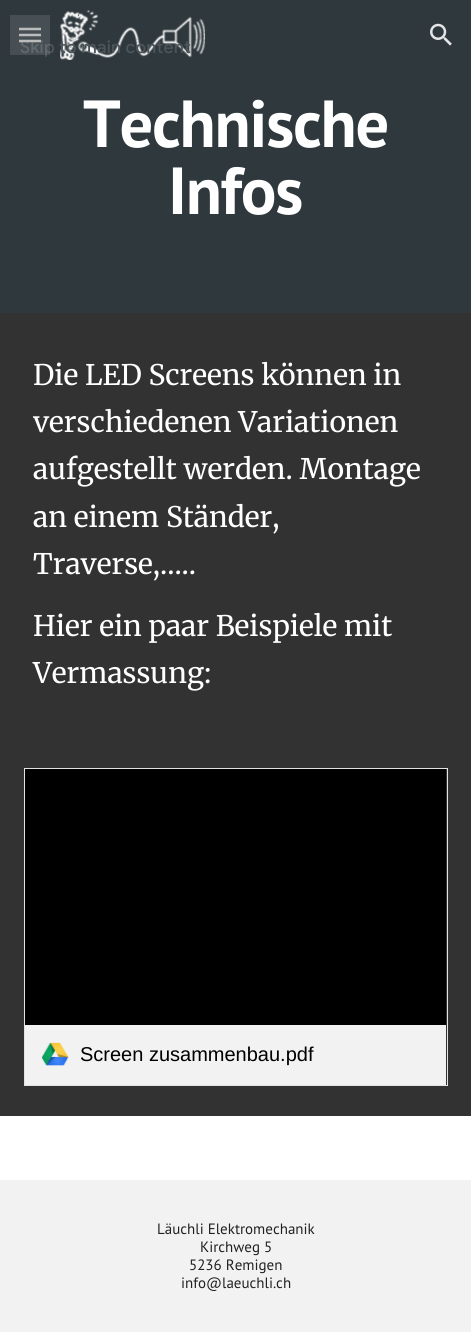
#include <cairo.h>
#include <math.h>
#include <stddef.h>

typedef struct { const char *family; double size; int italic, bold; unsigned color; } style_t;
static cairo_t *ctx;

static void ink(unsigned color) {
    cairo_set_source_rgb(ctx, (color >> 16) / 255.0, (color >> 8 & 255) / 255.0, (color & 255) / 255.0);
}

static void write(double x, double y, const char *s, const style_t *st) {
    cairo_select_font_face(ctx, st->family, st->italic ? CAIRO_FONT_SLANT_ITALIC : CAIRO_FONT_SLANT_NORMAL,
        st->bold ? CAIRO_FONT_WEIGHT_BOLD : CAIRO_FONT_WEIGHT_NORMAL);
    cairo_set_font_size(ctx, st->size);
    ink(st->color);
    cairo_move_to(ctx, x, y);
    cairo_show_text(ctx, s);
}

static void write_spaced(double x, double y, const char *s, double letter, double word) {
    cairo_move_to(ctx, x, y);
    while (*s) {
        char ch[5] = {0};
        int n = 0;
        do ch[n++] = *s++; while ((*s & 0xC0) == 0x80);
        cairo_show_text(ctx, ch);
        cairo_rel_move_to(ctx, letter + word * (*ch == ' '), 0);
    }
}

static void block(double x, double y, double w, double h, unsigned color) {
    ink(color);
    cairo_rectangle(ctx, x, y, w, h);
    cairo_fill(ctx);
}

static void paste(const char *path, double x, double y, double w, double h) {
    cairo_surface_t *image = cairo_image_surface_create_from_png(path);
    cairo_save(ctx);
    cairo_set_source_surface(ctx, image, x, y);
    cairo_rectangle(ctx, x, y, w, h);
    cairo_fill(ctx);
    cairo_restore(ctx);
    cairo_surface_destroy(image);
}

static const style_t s1 = {"Merriweather", 28.3, 0, 0, 0xffffff};
static const style_t s2 = {"Liberation Sans", 20, 0, 0, 0x000000};
static const style_t s3 = {"PT Sans", 15, 0, 0, 0x212121};

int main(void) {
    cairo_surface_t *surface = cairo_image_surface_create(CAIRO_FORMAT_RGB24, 471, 1332);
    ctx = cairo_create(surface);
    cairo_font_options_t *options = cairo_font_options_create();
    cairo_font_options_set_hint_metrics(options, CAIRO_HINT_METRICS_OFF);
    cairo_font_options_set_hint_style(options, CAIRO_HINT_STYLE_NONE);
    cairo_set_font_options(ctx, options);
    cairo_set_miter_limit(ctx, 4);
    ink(0xffffff);
    cairo_paint(ctx);
    block(0, 0, 471, 313, 0x2e383d);
    paste("pic1.png", 60, 10, 146, 51);
    cairo_select_font_face(ctx, "Google Sans Medium", CAIRO_FONT_SLANT_NORMAL, CAIRO_FONT_WEIGHT_NORMAL);
    cairo_set_font_size(ctx, 17.5);
    ink(0x4c5559);
    write_spaced(20, 53, "Skip to main content", 0.2, 0);
    cairo_new_path(ctx);
    cairo_move_to(ctx, 19, 29);
    cairo_line_to(ctx, 41, 29);
    cairo_move_to(ctx, 19, 35);
    cairo_line_to(ctx, 41, 35);
    cairo_move_to(ctx, 19, 41);
    cairo_line_to(ctx, 41, 41);
    ink(0xb2b2b2);
    cairo_set_line_width(ctx, 2.5);
    cairo_stroke(ctx);
    cairo_set_source_rgba(ctx, 1, 1, 1, 0.12);
    cairo_rectangle(ctx, 10, 15, 40, 40);
    cairo_fill(ctx);
    paste("pic2.png", 430, 23, 22, 23);
    cairo_select_font_face(ctx, "PT Sans", CAIRO_FONT_SLANT_NORMAL, CAIRO_FONT_WEIGHT_BOLD);
    cairo_set_font_size(ctx, 66.5);
    ink(0xffffff);
    write_spaced(83, 147, "Technische", -1.25, 0);
    write_spaced(168, 214, "Infos", -1.25, 0);
    block(0, 313, 471, 803, 0x323232);
    write(33, 385, "Die LED Screens können in", &s1);
    write(33, 432, "verschiedenen Variationen", &s1);
    write(33, 479, "aufgestellt werden. Montage", &s1);
    write(33, 527, "an einem Ständer,", &s1);
    write(33, 574, "Traverse,.....", &s1);
    write(33, 636, "Hier ein paar Beispiele mit", &s1);
    write(33, 683, "Vermassung:", &s1);
    cairo_rectangle(ctx, 24.5, 768.5, 423, 317);
    ink(0xe3e3e3);
    cairo_set_line_width(ctx, 1);
    cairo_stroke(ctx);
    block(25, 769, 421, 256, 0x000000);
    block(25, 1025, 421, 60, 0xf2f2f2);
    paste("pic3.png", 41, 1042, 28, 24);
    write(80, 1061, "Screen zusammenbau.pdf", &s2);
    block(0, 1180, 471, 152, 0xf2f2f2);
    write(157, 1234, "Läuchli Elektromechanik", &s3);
    write(200, 1252, "Kirchweg 5", &s3);
    write(189, 1270, "5236 Remigen", &s3);
    write(181, 1288, "info@laeuchli.ch", &s3);
    cairo_surface_write_to_png(surface, "screenshot.png");
    cairo_font_options_destroy(options);
    cairo_destroy(ctx);
    cairo_surface_destroy(surface);
    return 0;
}
